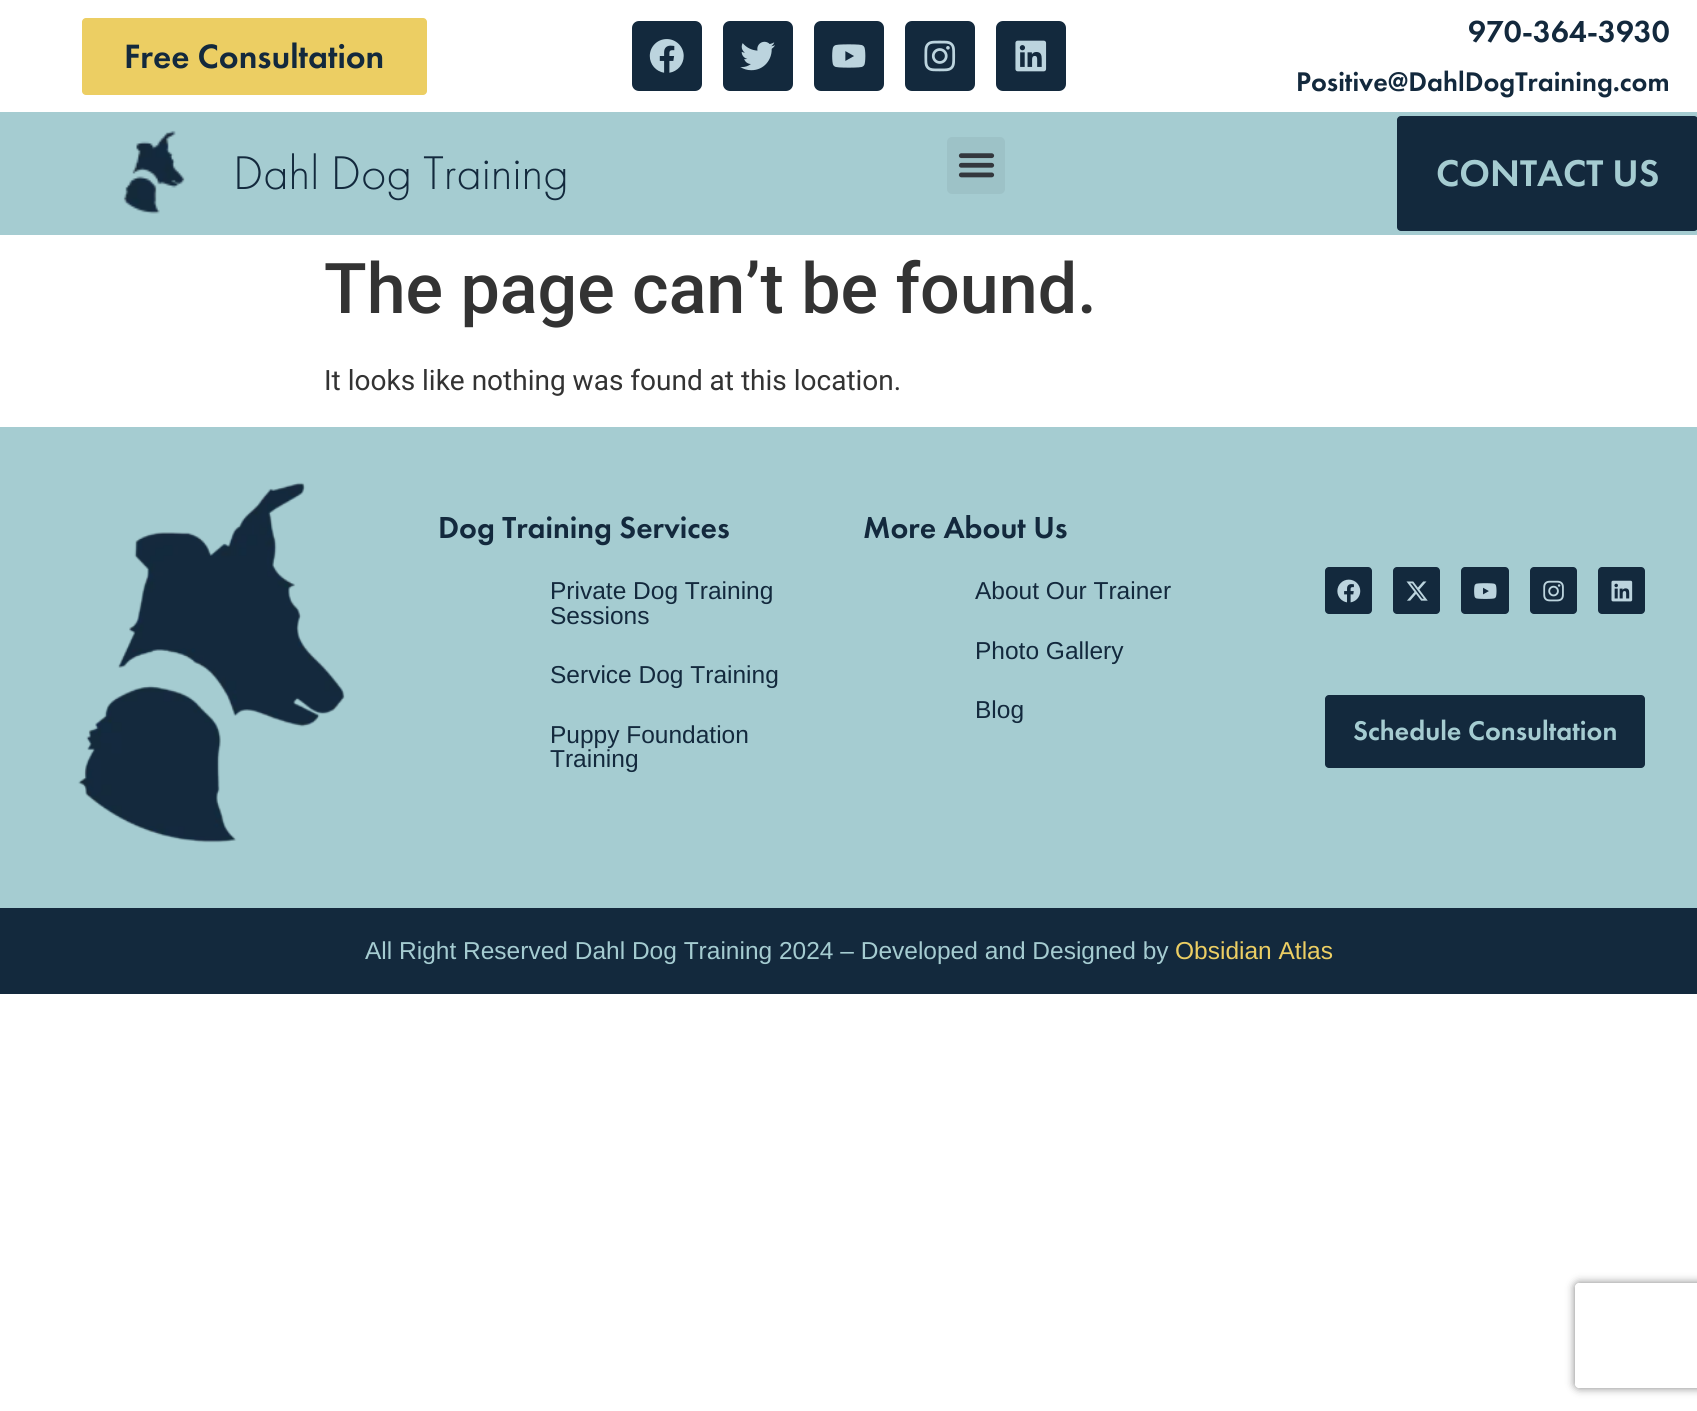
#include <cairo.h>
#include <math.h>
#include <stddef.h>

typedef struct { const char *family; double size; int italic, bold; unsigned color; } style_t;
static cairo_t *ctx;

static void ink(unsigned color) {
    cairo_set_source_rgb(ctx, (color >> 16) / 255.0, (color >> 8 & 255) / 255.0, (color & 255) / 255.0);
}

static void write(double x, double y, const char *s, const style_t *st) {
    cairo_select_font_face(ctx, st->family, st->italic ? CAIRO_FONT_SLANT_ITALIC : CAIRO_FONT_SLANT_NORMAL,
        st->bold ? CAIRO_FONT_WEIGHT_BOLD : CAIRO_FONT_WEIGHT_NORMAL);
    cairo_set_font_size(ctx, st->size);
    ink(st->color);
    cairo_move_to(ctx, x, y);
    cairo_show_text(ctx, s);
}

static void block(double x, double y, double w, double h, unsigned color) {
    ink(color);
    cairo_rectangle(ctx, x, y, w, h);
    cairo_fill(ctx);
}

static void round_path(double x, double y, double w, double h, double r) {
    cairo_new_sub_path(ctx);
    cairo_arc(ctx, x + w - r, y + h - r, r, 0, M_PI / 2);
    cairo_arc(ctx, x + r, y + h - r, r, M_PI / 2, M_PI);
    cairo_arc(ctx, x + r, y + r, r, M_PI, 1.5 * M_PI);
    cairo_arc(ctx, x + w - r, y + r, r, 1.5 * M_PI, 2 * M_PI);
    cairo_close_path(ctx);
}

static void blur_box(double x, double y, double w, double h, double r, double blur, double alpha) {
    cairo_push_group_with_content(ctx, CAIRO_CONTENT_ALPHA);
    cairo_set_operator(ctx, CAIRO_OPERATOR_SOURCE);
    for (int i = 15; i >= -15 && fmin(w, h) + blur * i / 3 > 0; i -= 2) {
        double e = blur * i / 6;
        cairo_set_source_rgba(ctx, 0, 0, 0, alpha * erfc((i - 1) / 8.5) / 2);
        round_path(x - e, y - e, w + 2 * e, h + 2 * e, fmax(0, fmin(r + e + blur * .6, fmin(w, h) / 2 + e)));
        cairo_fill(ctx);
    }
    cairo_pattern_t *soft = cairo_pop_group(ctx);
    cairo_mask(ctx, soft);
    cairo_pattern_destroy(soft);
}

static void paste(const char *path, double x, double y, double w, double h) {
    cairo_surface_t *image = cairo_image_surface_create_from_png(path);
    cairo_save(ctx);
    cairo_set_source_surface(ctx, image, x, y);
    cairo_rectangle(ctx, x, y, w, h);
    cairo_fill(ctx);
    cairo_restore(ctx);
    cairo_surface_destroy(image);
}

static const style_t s1 = {"Futura PT Medium", 35, 0, 0, 0x13293d};
static const style_t s2 = {"Futura PT Medium", 31.5, 0, 0, 0x13293d};
static const style_t s3 = {"Futura PT Medium", 28, 0, 0, 0x13293d};
static const style_t s4 = {"Futura PT Light", 49, 0, 0, 0x13293d};
static const style_t s5 = {"Futura PT Medium", 38.5, 0, 0, 0xa5ccd1};
static const style_t s6 = {"Roboto Medium", 70, 0, 0, 0x333333};
static const style_t s7 = {"Roboto", 28, 0, 0, 0x333333};
static const style_t s8 = {"Liberation Sans", 24.5, 0, 0, 0x13293d};
static const style_t s9 = {"Futura PT Medium", 28, 0, 0, 0xa5ccd1};
static const style_t s10 = {"Liberation Sans", 24.5, 0, 0, 0xa5ccd1};
static const style_t s11 = {"Liberation Sans", 24.5, 0, 0, 0xecce63};

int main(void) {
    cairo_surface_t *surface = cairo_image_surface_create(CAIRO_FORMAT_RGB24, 1697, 1411);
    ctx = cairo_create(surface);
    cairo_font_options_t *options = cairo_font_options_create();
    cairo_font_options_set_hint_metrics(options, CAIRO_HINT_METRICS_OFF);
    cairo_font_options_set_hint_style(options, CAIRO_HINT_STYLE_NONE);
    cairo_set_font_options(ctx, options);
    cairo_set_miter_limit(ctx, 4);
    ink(0xffffff);
    cairo_paint(ctx);
    ink(0xecce63);
    round_path(82, 18, 345, 77, 4);
    cairo_fill(ctx);
    write(124, 68, "Free Consultation", &s1);
    round_path(632, 21, 70, 70, 7);
    cairo_fill(ctx);
    paste("pic1.png", 649, 39, 35, 34);
    round_path(723, 21, 70, 70, 7);
    cairo_fill(ctx);
    paste("pic2.png", 740, 41, 35, 30);
    round_path(814, 21, 70, 70, 7);
    cairo_fill(ctx);
    paste("pic3.png", 832, 44, 34, 24);
    round_path(905, 21, 70, 70, 7);
    cairo_fill(ctx);
    paste("pic4.png", 924, 40, 32, 32);
    round_path(996, 21, 70, 70, 7);
    cairo_fill(ctx);
    paste("pic5.png", 1015, 40, 32, 32);
    write(1468, 42, "970-364-3930", &s2);
    write(1296, 91, "Positive@DahlDogTraining.com", &s3);
    block(0, 112, 1697, 123, 0xa5ccd1);
    paste("pic6.png", 123, 130, 62, 84);
    write(233, 189, "Dahl Dog Training", &s4);
    ink(0x9dc2c7);
    round_path(947, 137, 58, 57, 5);
    cairo_fill(ctx);
    paste("pic7.png", 958, 153, 37, 25);
    ink(0x13293d);
    round_path(1397, 116, 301, 115, 4);
    cairo_fill(ctx);
    write(1436, 186, "CONTACT US", &s5);
    write(324, 313, "The page can’t be found.", &s6);
    write(324, 390, "It looks like nothing was found at this location.", &s7);
    block(0, 427, 1697, 481, 0xa5ccd1);
    paste("pic8.png", 78, 482, 267, 361);
    write(438, 538, "Dog Training Services", &s2);
    write(550, 599, "Private Dog Training", &s8);
    write(550, 624, "Sessions", &s8);
    write(550, 683, "Service Dog Training", &s8);
    write(550, 743, "Puppy Foundation", &s8);
    write(550, 767, "Training", &s8);
    write(863, 538, "More About Us", &s2);
    write(975, 599, "About Our Trainer", &s8);
    write(975, 659, "Photo Gallery", &s8);
    write(975, 718, "Blog", &s8);
    round_path(1325, 567, 47, 47, 4);
    cairo_fill(ctx);
    paste("pic9.png", 1337, 579, 24, 24);
    round_path(1393, 567, 47, 47, 4);
    cairo_fill(ctx);
    paste("pic10.png", 1406, 581, 22, 20);
    round_path(1461, 567, 48, 47, 4);
    cairo_fill(ctx);
    paste("pic11.png", 1474, 583, 23, 16);
    round_path(1530, 567, 47, 47, 4);
    cairo_fill(ctx);
    paste("pic12.png", 1543, 580, 21, 22);
    round_path(1598, 567, 47, 47, 4);
    cairo_fill(ctx);
    paste("pic13.png", 1611, 580, 22, 22);
    round_path(1325, 695, 320, 73, 4);
    cairo_fill(ctx);
    write(1353, 740, "Schedule Consultation", &s9);
    block(0, 908, 1697, 86, 0x13293d);
    write(365, 959, "All Right Reserved Dahl Dog Training 2024 – Developed and Designed by", &s10);
    write(1175, 959, "Obsidian Atlas", &s11);
    cairo_save(ctx);
    cairo_set_fill_rule(ctx, CAIRO_FILL_RULE_EVEN_ODD);
    cairo_new_path(ctx);
    cairo_move_to(ctx, 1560, 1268);
    cairo_line_to(ctx, 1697, 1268);
    cairo_line_to(ctx, 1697, 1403);
    cairo_line_to(ctx, 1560, 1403);
    cairo_close_path(ctx);
    cairo_move_to(ctx, 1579, 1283);
    cairo_line_to(ctx, 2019, 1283);
    cairo_curve_to(ctx, 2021, 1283, 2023, 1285, 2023, 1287);
    cairo_line_to(ctx, 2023, 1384);
    cairo_curve_to(ctx, 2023, 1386, 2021, 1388, 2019, 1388);
    cairo_line_to(ctx, 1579, 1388);
    cairo_curve_to(ctx, 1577, 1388, 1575, 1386, 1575, 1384);
    cairo_line_to(ctx, 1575, 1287);
    cairo_curve_to(ctx, 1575, 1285, 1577, 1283, 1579, 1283);
    cairo_close_path(ctx);
    cairo_clip(ctx);
    ink(0x808080);
    blur_box(1575, 1283, 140, 105, 4, 4.5, 1);
    cairo_restore(ctx);
    cairo_surface_write_to_png(surface, "screenshot.png");
    cairo_font_options_destroy(options);
    cairo_destroy(ctx);
    cairo_surface_destroy(surface);
    return 0;
}
